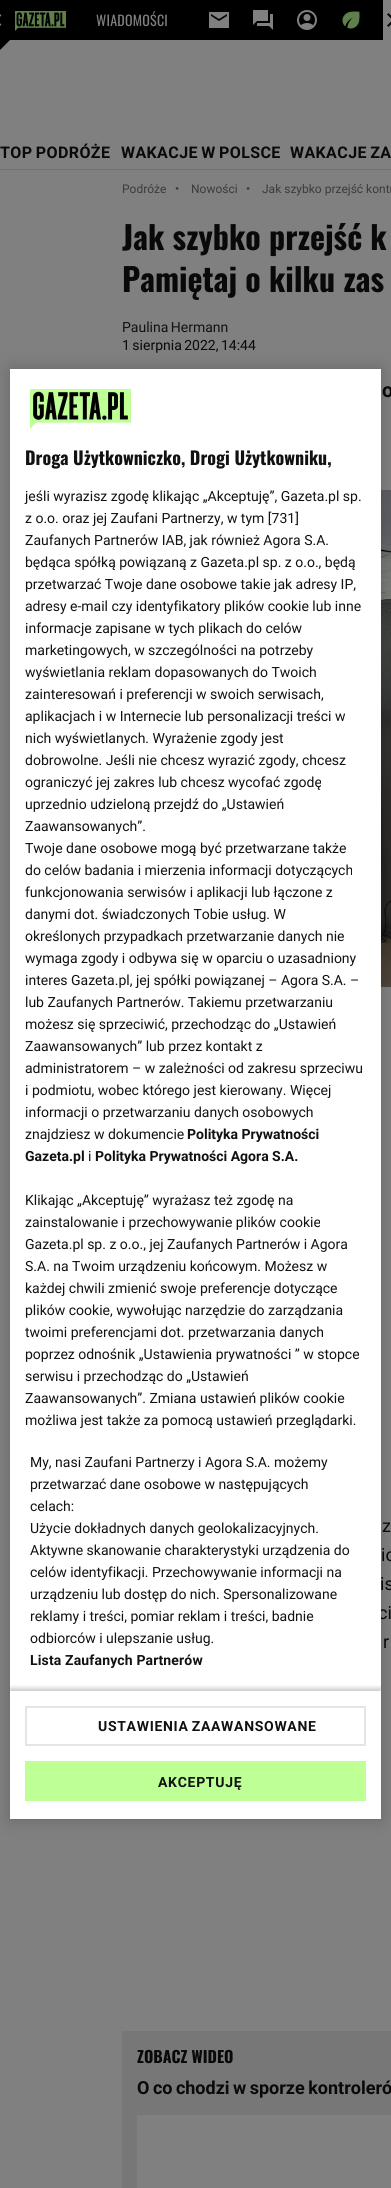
#include <cairo.h>
#include <math.h>
#include <stddef.h>

typedef struct { const char *family; double size; int italic, bold; unsigned color; } style_t;
static cairo_t *ctx;

static void ink(unsigned color) {
    cairo_set_source_rgb(ctx, (color >> 16) / 255.0, (color >> 8 & 255) / 255.0, (color & 255) / 255.0);
}

static void write(double x, double y, const char *s, const style_t *st) {
    cairo_select_font_face(ctx, st->family, st->italic ? CAIRO_FONT_SLANT_ITALIC : CAIRO_FONT_SLANT_NORMAL,
        st->bold ? CAIRO_FONT_WEIGHT_BOLD : CAIRO_FONT_WEIGHT_NORMAL);
    cairo_set_font_size(ctx, st->size);
    ink(st->color);
    cairo_move_to(ctx, x, y);
    cairo_show_text(ctx, s);
}

static void write_spaced(double x, double y, const char *s, double letter, double word) {
    cairo_move_to(ctx, x, y);
    while (*s) {
        char ch[5] = {0};
        int n = 0;
        do ch[n++] = *s++; while ((*s & 0xC0) == 0x80);
        cairo_show_text(ctx, ch);
        cairo_rel_move_to(ctx, letter + word * (*ch == ' '), 0);
    }
}

static void block(double x, double y, double w, double h, unsigned color) {
    ink(color);
    cairo_rectangle(ctx, x, y, w, h);
    cairo_fill(ctx);
}

static void round_path(double x, double y, double w, double h, double r) {
    cairo_new_sub_path(ctx);
    cairo_arc(ctx, x + w - r, y + h - r, r, 0, M_PI / 2);
    cairo_arc(ctx, x + r, y + h - r, r, M_PI / 2, M_PI);
    cairo_arc(ctx, x + r, y + r, r, M_PI, 1.5 * M_PI);
    cairo_arc(ctx, x + w - r, y + r, r, 1.5 * M_PI, 2 * M_PI);
    cairo_close_path(ctx);
}

static void blur_box(double x, double y, double w, double h, double r, double blur, double alpha) {
    cairo_push_group_with_content(ctx, CAIRO_CONTENT_ALPHA);
    cairo_set_operator(ctx, CAIRO_OPERATOR_SOURCE);
    for (int i = 15; i >= -15 && fmin(w, h) + blur * i / 3 > 0; i -= 2) {
        double e = blur * i / 6;
        cairo_set_source_rgba(ctx, 0, 0, 0, alpha * erfc((i - 1) / 8.5) / 2);
        round_path(x - e, y - e, w + 2 * e, h + 2 * e, fmax(0, fmin(r + e + blur * .6, fmin(w, h) / 2 + e)));
        cairo_fill(ctx);
    }
    cairo_pattern_t *soft = cairo_pop_group(ctx);
    cairo_mask(ctx, soft);
    cairo_pattern_destroy(soft);
}

static void paste(const char *path, double x, double y, double w, double h) {
    cairo_surface_t *image = cairo_image_surface_create_from_png(path);
    cairo_save(ctx);
    cairo_set_source_surface(ctx, image, x, y);
    cairo_rectangle(ctx, x, y, w, h);
    cairo_fill(ctx);
    cairo_restore(ctx);
    cairo_surface_destroy(image);
}

static const style_t s1 = {"Roboto", 12, 0, 0, 0x3b3b3b};
static const style_t s2 = {"Roboto", 24, 0, 0, 0x3b3b3b};
static const style_t s3 = {"Oswald", 32, 0, 1, 0x090909};
static const style_t s4 = {"Roboto", 18, 0, 0, 0x090909};
static const style_t s5 = {"Oswald", 16, 0, 1, 0x090909};
static const style_t s6 = {"Oswald", 18, 0, 1, 0x111111};
static const style_t s7 = {"Roboto", 14, 0, 0, 0x111111};
static const style_t s8 = {"Roboto", 14, 0, 1, 0x111111};

int main(void) {
    cairo_surface_t *surface = cairo_image_surface_create(CAIRO_FORMAT_RGB24, 391, 2188);
    ctx = cairo_create(surface);
    cairo_font_options_t *options = cairo_font_options_create();
    cairo_font_options_set_hint_metrics(options, CAIRO_HINT_METRICS_OFF);
    cairo_font_options_set_hint_style(options, CAIRO_HINT_STYLE_NONE);
    cairo_set_font_options(ctx, options);
    cairo_set_miter_limit(ctx, 4);
    ink(0x808080);
    cairo_paint(ctx);
    block(0, 0, 383, 40, 0x000000);
    paste("pic1.png", 0, 14, 2, 12);
    paste("pic2.png", 15, 11, 51, 20);
    cairo_select_font_face(ctx, "Oswald", CAIRO_FONT_SLANT_NORMAL, CAIRO_FONT_WEIGHT_NORMAL);
    cairo_set_font_size(ctx, 14);
    ink(0x808080);
    write_spaced(96, 26, "WIADOMOŚCI", 0.25, 0);
    paste("pic3.png", 209, 12, 20, 16);
    paste("pic4.png", 253, 10, 20, 20);
    paste("pic5.png", 297, 10, 20, 20);
    paste("pic6.png", 342, 11, 18, 18);
    ink(0x090909);
    cairo_new_path(ctx);
    cairo_move_to(ctx, 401, 14.5);
    cairo_line_to(ctx, 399.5, 13);
    cairo_line_to(ctx, 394, 18.5);
    cairo_line_to(ctx, 388.5, 13);
    cairo_line_to(ctx, 387, 14.5);
    cairo_line_to(ctx, 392.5, 20);
    cairo_line_to(ctx, 387, 25.5);
    cairo_line_to(ctx, 388.5, 27);
    cairo_line_to(ctx, 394, 21.5);
    cairo_line_to(ctx, 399.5, 27);
    cairo_line_to(ctx, 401, 25.5);
    cairo_line_to(ctx, 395.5, 20);
    cairo_close_path(ctx);
    cairo_fill(ctx);
    ink(0x000000);
    cairo_new_path(ctx);
    cairo_move_to(ctx, 0, 40);
    cairo_line_to(ctx, 10, 40);
    cairo_line_to(ctx, 0, 50);
    cairo_close_path(ctx);
    cairo_fill(ctx);
    block(0, 169, 391, 1, 0x737373);
    cairo_select_font_face(ctx, "Roboto", CAIRO_FONT_SLANT_NORMAL, CAIRO_FONT_WEIGHT_BOLD);
    cairo_set_font_size(ctx, 16);
    ink(0x090909);
    write_spaced(0, 158, "TOP PODRÓŻE", 0.4, -1);
    write_spaced(121, 158, "WAKACJE W POLSCE", 0.4, -1);
    write_spaced(290, 158, "WAKACJE ZA", 0.4, -1);
    write(122, 193, "Podróże", &s1);
    write(174, 197, "·", &s2);
    write(191, 193, "Nowości", &s1);
    write(245, 197, "·", &s2);
    write(262, 193, "Jak szybko przejść kontr", &s1);
    write(122, 250, "Jak szybko przejść k", &s3);
    write(122, 292, "Pamiętaj o kilku zas", &s3);
    cairo_select_font_face(ctx, "Roboto", CAIRO_FONT_SLANT_NORMAL, CAIRO_FONT_WEIGHT_NORMAL);
    cairo_set_font_size(ctx, 14);
    ink(0x111111);
    write_spaced(122, 332, "Paulina Hermann", 0, -1);
    ink(0x090909);
    write_spaced(122, 350, "1 sierpnia 2022, 14:44", 0, -1);
    cairo_select_font_face(ctx, "Roboto", CAIRO_FONT_SLANT_NORMAL, CAIRO_FONT_WEIGHT_BOLD);
    cairo_set_font_size(ctx, 20);
    write_spaced(382, 397, "o", 0, -1);
    paste("pic7.png", 381, 490, 10, 497);
    write(382, 1532, "z", &s4);
    write(381, 1561, "io", &s4);
    write(380, 1590, "is", &s4);
    write(378, 1619, "ci", &s4);
    write(383, 1648, "r", &s4);
    block(122, 2031, 269, 157, 0x777777);
    write(137, 2063, "ZOBACZ WIDEO", &s5);
    cairo_select_font_face(ctx, "Roboto", CAIRO_FONT_SLANT_NORMAL, CAIRO_FONT_WEIGHT_BOLD);
    cairo_set_font_size(ctx, 18);
    write_spaced(137, 2094, "O co chodzi w sporze kontroleró", 0, -1);
    block(137, 2115, 254, 73, 0x808080);
    ink(0x000000);
    blur_box(10, 369, 371, 1450, 0, 9, 0.2);
    block(10, 369, 371, 1450, 0xffffff);
    paste("pic8.png", 30, 389, 101, 40);
    write(25, 465, "Droga Użytkowniczko, Drogi Użytkowniku,", &s6);
    write(25, 501, "jeśli wyrazisz zgodę klikając „Akceptuję”, Gazeta.pl sp.", &s7);
    write(25, 523, "z o.o. oraz jej Zaufani Partnerzy, w tym [731]", &s7);
    write(25, 545, "Zaufanych Partnerów IAB, jak również Agora S.A.", &s7);
    write(25, 567, "będąca spółką powiązaną z Gazeta.pl sp. z o.o., będą", &s7);
    write(25, 589, "przetwarzać Twoje dane osobowe takie jak adresy IP,", &s7);
    write(25, 611, "adresy e-mail czy identyfikatory plików cookie lub inne", &s7);
    write(25, 633, "informacje zapisane w tych plikach do celów", &s7);
    write(25, 655, "marketingowych, w szczególności na potrzeby", &s7);
    write(25, 677, "wyświetlania reklam dopasowanych do Twoich", &s7);
    write(25, 699, "zainteresowań i preferencji w swoich serwisach,", &s7);
    write(25, 721, "aplikacjach i w Internecie lub personalizacji treści w", &s7);
    write(25, 743, "nich wyświetlanych. Wyrażenie zgody jest", &s7);
    write(25, 765, "dobrowolne. Jeśli nie chcesz wyrazić zgody, chcesz", &s7);
    write(25, 787, "ograniczyć jej zakres lub chcesz wycofać zgodę", &s7);
    write(25, 809, "uprzednio udzieloną przejdź do „Ustawień", &s7);
    write(25, 831, "Zaawansowanych”.", &s7);
    write(25, 853, "Twoje dane osobowe mogą być przetwarzane także", &s7);
    write(25, 875, "do celów badania i mierzenia informacji dotyczących", &s7);
    write(25, 897, "funkcjonowania serwisów i aplikacji lub łączone z", &s7);
    write(25, 919, "danymi dot. świadczonych Tobie usług. W", &s7);
    write(25, 941, "określonych przypadkach przetwarzanie danych nie", &s7);
    write(25, 963, "wymaga zgody i odbywa się w oparciu o uzasadniony", &s7);
    write(25, 985, "interes Gazeta.pl, jej spółki powiązanej – Agora S.A. –", &s7);
    write(25, 1007, "lub Zaufanych Partnerów. Takiemu przetwarzaniu", &s7);
    write(25, 1029, "możesz się sprzeciwić, przechodząc do „Ustawień", &s7);
    write(25, 1051, "Zaawansowanych” lub przez kontakt z", &s7);
    write(25, 1073, "administratorem – w zależności od zakresu sprzeciwu", &s7);
    write(25, 1095, "i podmiotu, wobec którego jest kierowany. Więcej", &s7);
    write(25, 1117, "informacji o przetwarzaniu danych osobowych", &s7);
    write(25, 1139, "znajdziesz w dokumencie", &s7);
    write(187, 1139, "Polityka Prywatności", &s8);
    write(25, 1161, "Gazeta.pl", &s8);
    write(88, 1161, "i", &s7);
    write(95, 1161, "Polityka Prywatności Agora S.A.", &s8);
    write(25, 1205, "Klikając „Akceptuję” wyrażasz też zgodę na", &s7);
    write(25, 1227, "zainstalowanie i przechowywanie plików cookie", &s7);
    write(25, 1249, "Gazeta.pl sp. z o.o., jej Zaufanych Partnerów i Agora", &s7);
    write(25, 1271, "S.A. na Twoim urządzeniu końcowym. Możesz w", &s7);
    write(25, 1293, "każdej chwili zmienić swoje preferencje dotyczące", &s7);
    write(25, 1315, "plików cookie, wywołując narzędzie do zarządzania", &s7);
    write(25, 1337, "twoimi preferencjami dot. przetwarzania danych", &s7);
    write(25, 1359, "poprzez odnośnik „Ustawienia prywatności ” w stopce", &s7);
    write(25, 1381, "serwisu i przechodząc do „Ustawień", &s7);
    write(25, 1403, "Zaawansowanych”. Zmiana ustawień plików cookie", &s7);
    write(25, 1425, "możliwa jest także za pomocą ustawień przeglądarki.", &s7);
    write(30, 1467, "My, nasi Zaufani Partnerzy i Agora S.A. możemy", &s7);
    write(30, 1489, "przetwarzać dane osobowe w następujących", &s7);
    write(30, 1511, "celach:", &s7);
    write(30, 1533, "Użycie dokładnych danych geolokalizacyjnych.", &s7);
    write(30, 1555, "Aktywne skanowanie charakterystyki urządzenia do", &s7);
    write(30, 1577, "celów identyfikacji. Przechowywanie informacji na", &s7);
    write(30, 1599, "urządzeniu lub dostęp do nich. Spersonalizowane", &s7);
    write(30, 1621, "reklamy i treści, pomiar reklam i treści, badnie", &s7);
    write(30, 1643, "odbiorców i ulepszanie usług.", &s7);
    cairo_select_font_face(ctx, "Roboto", CAIRO_FONT_SLANT_NORMAL, CAIRO_FONT_WEIGHT_BOLD);
    write_spaced(30, 1665, "Lista Zaufanych Partnerów", 0.15, 0);
    cairo_save(ctx);
    cairo_rectangle(ctx, 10, 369, 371, 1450);
    cairo_clip(ctx);
    cairo_rectangle(ctx, 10, 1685, 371, 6);
    cairo_clip(ctx);
    ink(0x000000);
    blur_box(10, 1688, 371, 128, 0, 2, 0.2);
    cairo_restore(ctx);
    cairo_rectangle(ctx, 26, 1707, 339, 38);
    ink(0xe5e5e5);
    cairo_stroke(ctx);
    ink(0x111111);
    write_spaced(98, 1731, "USTAWIENIA ZAAWANSOWANE", 0.7, -1);
    block(25, 1761, 341, 40, 0xbeff96);
    ink(0x111111);
    write_spaced(158, 1787, "AKCEPTUJĘ", 0.7, 0);
    cairo_surface_write_to_png(surface, "screenshot.png");
    cairo_font_options_destroy(options);
    cairo_destroy(ctx);
    cairo_surface_destroy(surface);
    return 0;
}
